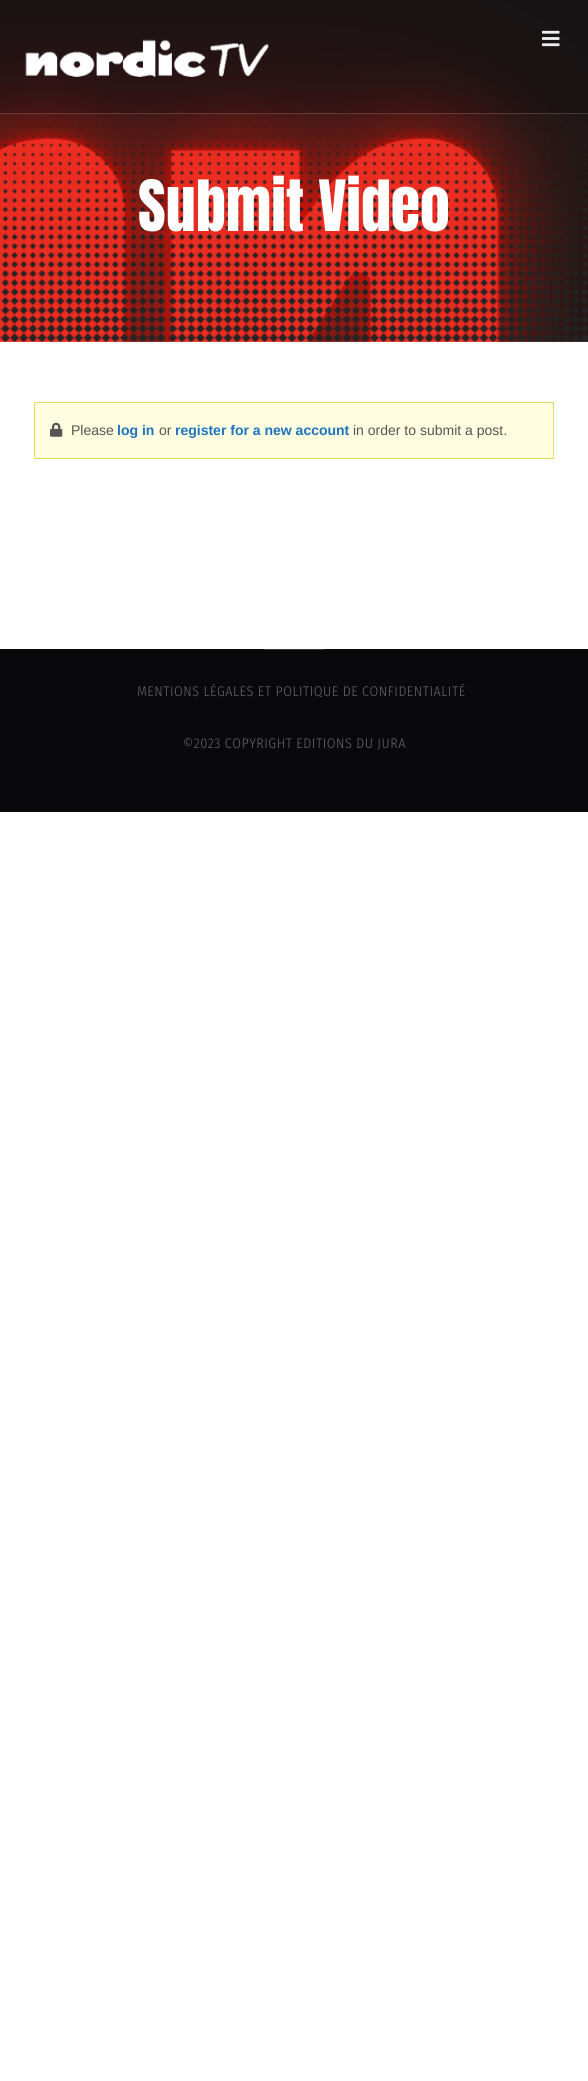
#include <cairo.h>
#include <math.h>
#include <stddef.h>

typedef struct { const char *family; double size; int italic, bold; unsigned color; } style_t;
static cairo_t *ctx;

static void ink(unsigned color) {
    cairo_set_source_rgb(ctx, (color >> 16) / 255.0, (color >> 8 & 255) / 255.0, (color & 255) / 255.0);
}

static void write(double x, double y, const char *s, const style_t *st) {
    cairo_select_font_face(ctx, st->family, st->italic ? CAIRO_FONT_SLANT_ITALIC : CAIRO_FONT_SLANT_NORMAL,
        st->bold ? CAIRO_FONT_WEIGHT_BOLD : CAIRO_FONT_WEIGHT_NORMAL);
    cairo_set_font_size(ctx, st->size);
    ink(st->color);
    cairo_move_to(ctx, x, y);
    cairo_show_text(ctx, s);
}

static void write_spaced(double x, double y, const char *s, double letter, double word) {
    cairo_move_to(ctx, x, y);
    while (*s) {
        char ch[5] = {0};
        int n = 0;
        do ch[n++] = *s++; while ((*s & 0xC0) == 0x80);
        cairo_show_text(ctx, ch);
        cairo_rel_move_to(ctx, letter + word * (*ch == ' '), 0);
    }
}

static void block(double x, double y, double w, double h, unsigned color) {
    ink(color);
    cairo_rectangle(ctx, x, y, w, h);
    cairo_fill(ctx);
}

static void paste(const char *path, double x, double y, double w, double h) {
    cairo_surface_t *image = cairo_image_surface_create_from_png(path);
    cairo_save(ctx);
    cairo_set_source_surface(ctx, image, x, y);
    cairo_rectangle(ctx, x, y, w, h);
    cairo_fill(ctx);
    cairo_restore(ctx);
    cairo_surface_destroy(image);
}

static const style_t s1 = {"Anton", 60, 0, 0, 0xffffff};
static const style_t s2 = {"Arimo", 14, 0, 0, 0x555555};
static const style_t s3 = {"Arimo", 14, 0, 1, 0x1e73be};

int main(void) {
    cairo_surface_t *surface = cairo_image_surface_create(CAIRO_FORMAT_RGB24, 588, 2081);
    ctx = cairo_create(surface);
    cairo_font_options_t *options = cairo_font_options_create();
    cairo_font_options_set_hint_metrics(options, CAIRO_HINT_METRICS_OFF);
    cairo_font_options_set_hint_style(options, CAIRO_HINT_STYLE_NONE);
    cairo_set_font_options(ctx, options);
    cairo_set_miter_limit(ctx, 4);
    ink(0xffffff);
    cairo_paint(ctx);
    paste("pic3.png", 0, 0, 588, 342);
    cairo_set_source_rgba(ctx, 0.035, 0.035, 0.047, 0.2);
    cairo_rectangle(ctx, 0, 0, 588, 113);
    cairo_fill(ctx);
    paste("pic1.png", 25, 39, 244, 38);
    paste("pic2.png", 542, 30, 18, 17);
    cairo_set_source_rgba(ctx, 1, 1, 1, 0.15);
    cairo_rectangle(ctx, 0, 113, 588, 1);
    cairo_fill(ctx);
    write(138, 231, "Submit Video", &s1);
    ink(0xfffee1);
    cairo_rectangle(ctx, 34.5, 402.5, 519, 56);
    cairo_fill_preserve(ctx);
    ink(0xe7d95d);
    cairo_set_line_width(ctx, 1);
    cairo_stroke(ctx);
    paste("pic4.png", 50, 422, 13, 15);
    write(71, 435, "Please", &s2);
    write(117, 435, "log in", &s3);
    write(159, 435, "or", &s2);
    write(175, 435, "register for a new account", &s3);
    write(353, 435, "in order to submit a post.", &s2);
    block(0, 649, 588, 163, 0x09090c);
    block(264, 649, 60, 1, 0x3a3a3a);
    cairo_select_font_face(ctx, "Fira Sans Condensed Light", CAIRO_FONT_SLANT_NORMAL, CAIRO_FONT_WEIGHT_NORMAL);
    ink(0x666666);
    write_spaced(137, 696, "MENTIONS LÉGALES ET POLITIQUE DE CONFIDENTIALITÉ", 0.5, 0);
    write_spaced(183, 748, "©2023 COPYRIGHT EDITIONS DU JURA", 0.5, 0);
    cairo_surface_write_to_png(surface, "screenshot.png");
    cairo_font_options_destroy(options);
    cairo_destroy(ctx);
    cairo_surface_destroy(surface);
    return 0;
}
